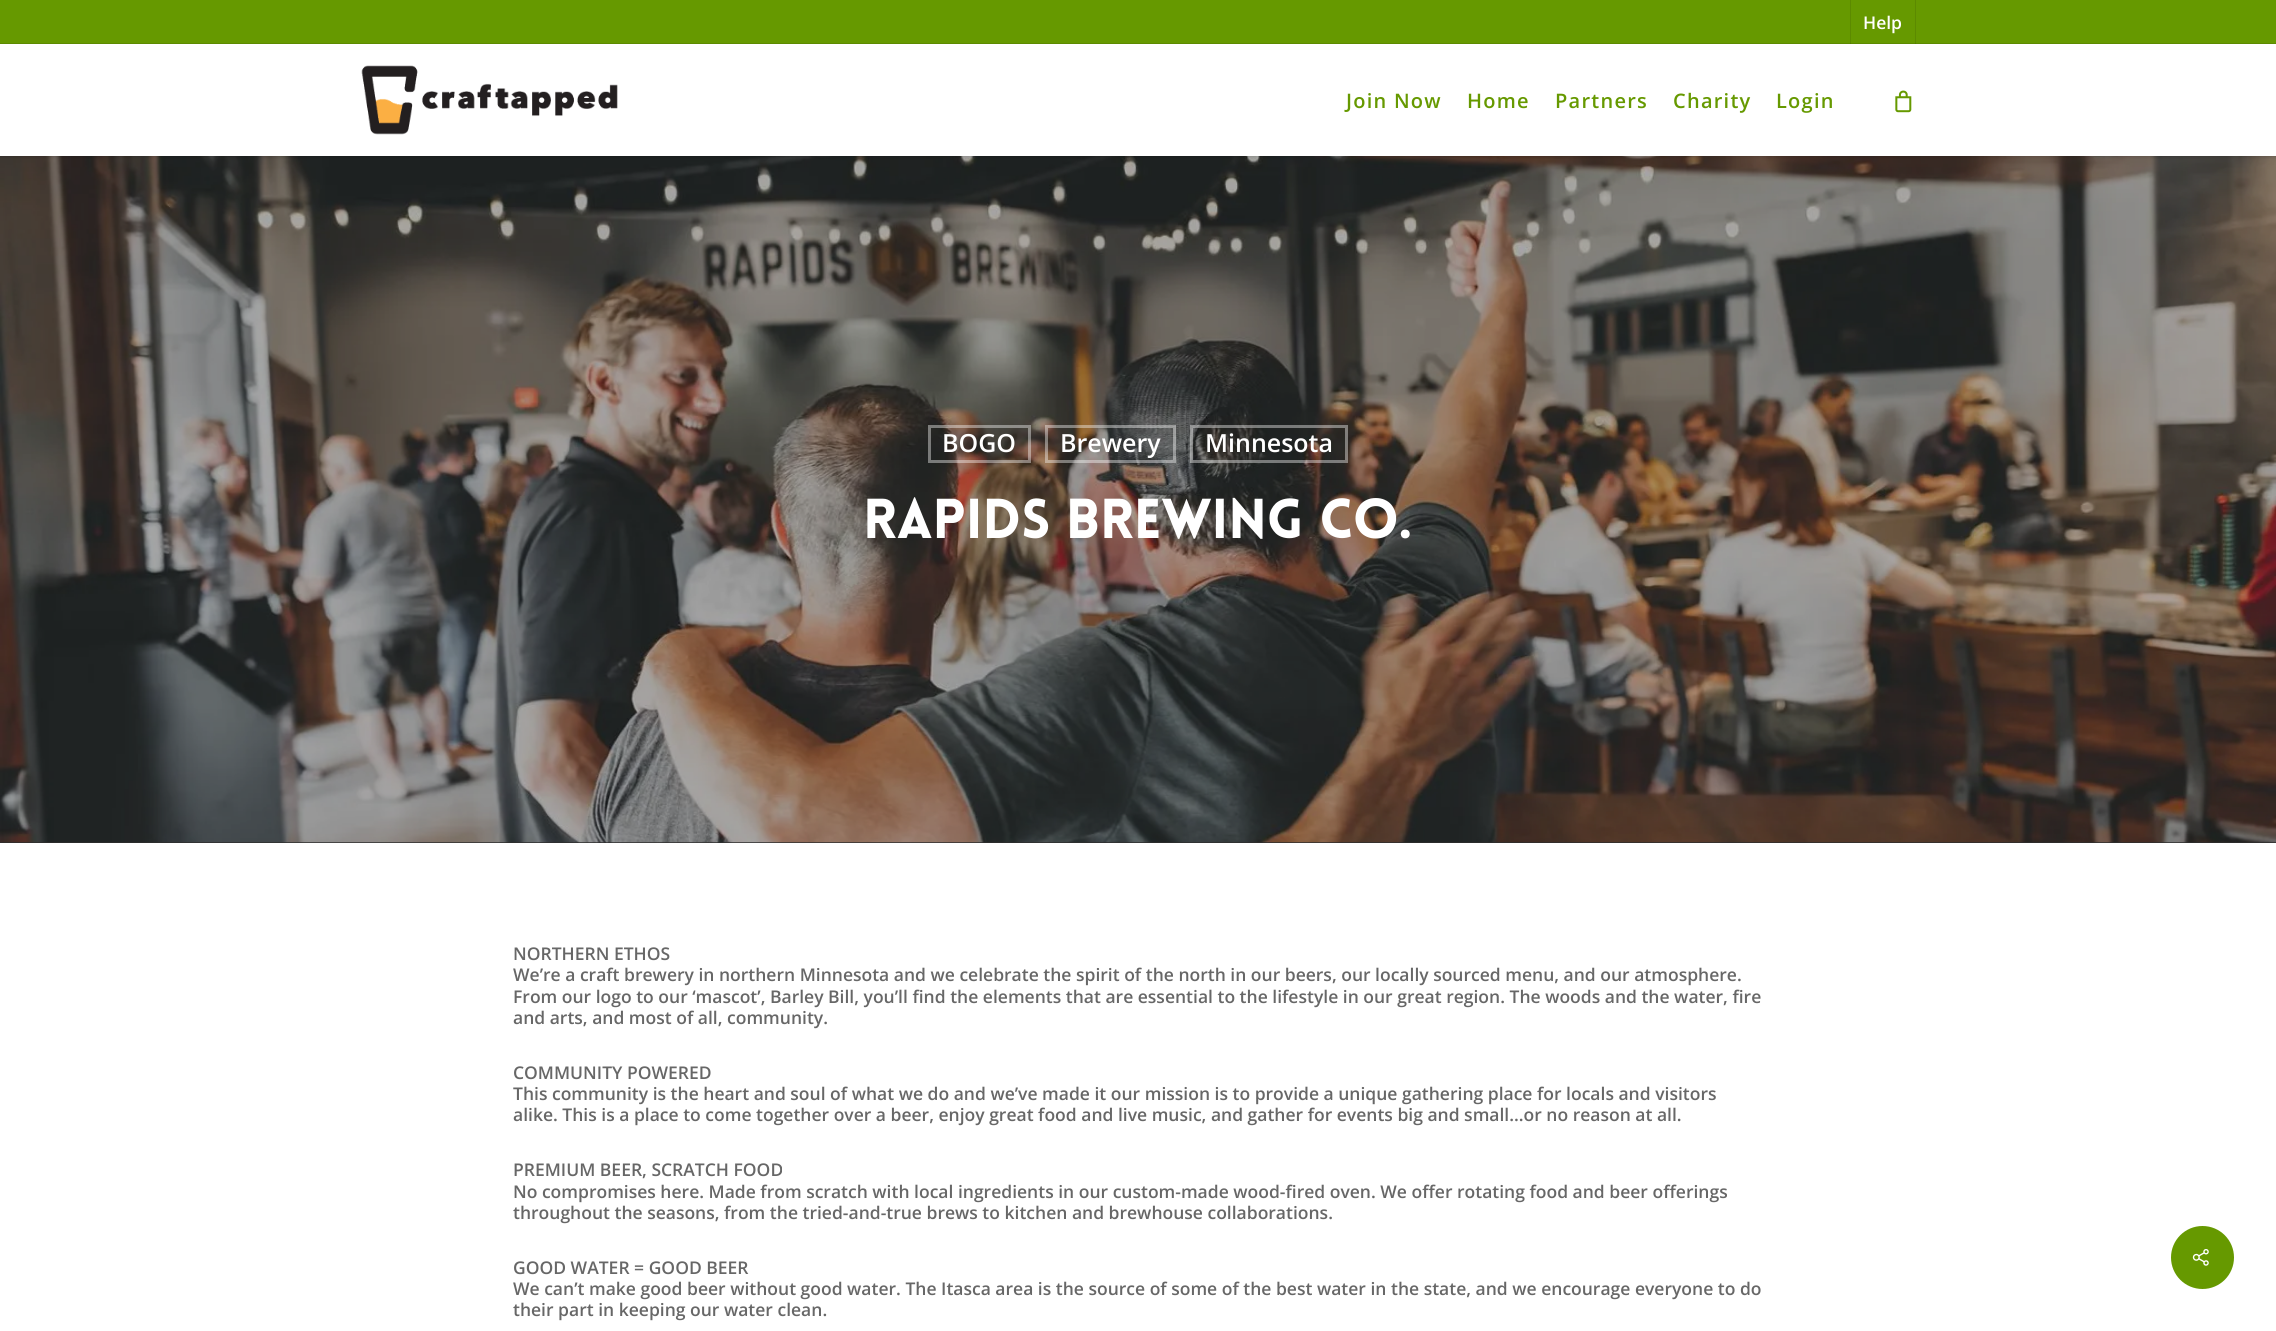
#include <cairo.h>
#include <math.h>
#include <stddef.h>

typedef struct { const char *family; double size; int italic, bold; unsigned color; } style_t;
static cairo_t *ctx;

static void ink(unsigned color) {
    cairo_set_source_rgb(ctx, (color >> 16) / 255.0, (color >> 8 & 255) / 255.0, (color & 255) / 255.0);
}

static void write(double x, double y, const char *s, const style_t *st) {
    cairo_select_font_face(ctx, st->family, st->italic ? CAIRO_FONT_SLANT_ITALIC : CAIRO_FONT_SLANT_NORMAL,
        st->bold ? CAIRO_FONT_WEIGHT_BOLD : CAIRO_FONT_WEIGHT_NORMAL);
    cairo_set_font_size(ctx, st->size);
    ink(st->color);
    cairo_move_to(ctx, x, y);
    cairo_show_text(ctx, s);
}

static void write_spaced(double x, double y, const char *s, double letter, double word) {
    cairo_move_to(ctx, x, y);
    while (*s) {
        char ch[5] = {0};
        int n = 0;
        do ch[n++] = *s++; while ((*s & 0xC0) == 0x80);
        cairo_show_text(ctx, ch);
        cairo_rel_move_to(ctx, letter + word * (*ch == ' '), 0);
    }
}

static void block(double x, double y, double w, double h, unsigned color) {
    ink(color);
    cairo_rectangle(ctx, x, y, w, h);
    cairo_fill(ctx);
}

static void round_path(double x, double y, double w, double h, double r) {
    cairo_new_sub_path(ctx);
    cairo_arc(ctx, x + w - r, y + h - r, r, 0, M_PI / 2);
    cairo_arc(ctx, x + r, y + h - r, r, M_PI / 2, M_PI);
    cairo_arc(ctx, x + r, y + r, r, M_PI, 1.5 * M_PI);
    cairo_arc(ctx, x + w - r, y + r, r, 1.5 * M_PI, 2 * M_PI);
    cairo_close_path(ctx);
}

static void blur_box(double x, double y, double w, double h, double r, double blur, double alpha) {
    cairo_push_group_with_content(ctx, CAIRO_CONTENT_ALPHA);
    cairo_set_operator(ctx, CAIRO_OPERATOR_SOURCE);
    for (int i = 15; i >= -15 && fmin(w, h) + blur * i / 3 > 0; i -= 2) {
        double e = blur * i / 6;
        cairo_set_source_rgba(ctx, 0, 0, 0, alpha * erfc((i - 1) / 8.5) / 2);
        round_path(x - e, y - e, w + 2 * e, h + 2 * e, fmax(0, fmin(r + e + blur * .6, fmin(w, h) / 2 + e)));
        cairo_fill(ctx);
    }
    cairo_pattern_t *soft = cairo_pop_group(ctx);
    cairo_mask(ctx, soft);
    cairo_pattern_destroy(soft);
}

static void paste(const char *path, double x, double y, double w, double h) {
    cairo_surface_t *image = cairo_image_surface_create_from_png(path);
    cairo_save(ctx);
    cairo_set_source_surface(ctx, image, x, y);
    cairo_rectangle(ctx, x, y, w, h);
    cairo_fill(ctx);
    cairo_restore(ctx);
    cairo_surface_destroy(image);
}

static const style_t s1 = {"Open Sans SemiBold", 17.5, 0, 0, 0xffffff};
static const style_t s2 = {"Open Sans SemiBold", 25, 0, 0, 0xffffff};
static const style_t s3 = {"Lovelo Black", 55, 0, 0, 0xffffff};
static const style_t s4 = {"Open Sans SemiBold", 17.5, 0, 0, 0x676767};

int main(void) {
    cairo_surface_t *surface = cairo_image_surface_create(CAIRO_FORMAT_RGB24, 2276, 1331);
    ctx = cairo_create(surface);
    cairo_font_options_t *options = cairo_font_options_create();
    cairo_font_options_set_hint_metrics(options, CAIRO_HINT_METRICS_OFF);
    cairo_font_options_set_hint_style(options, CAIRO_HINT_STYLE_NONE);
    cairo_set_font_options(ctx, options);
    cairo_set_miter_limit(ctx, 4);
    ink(0xffffff);
    cairo_paint(ctx);
    block(0, 842, 2276, 1, 0x2d2d2d);
    paste("pic3.png", 0, 156, 2276, 687);
    ink(0x000000);
    blur_box(0, 0, 2276, 156, 0, 2, 0.22);
    block(0, 44, 2276, 112, 0xffffff);
    block(0, 0, 2276, 43, 0x669900);
    block(1850, 0, 1, 44, 0x5c8a00);
    block(1915, 0, 1, 44, 0x5c8a00);
    block(0, 43, 2276, 1, 0x5c8a00);
    block(1850, 43, 1, 1, 0x537c00);
    block(1915, 43, 1, 1, 0x537c00);
    write(1863, 29, "Help", &s1);
    paste("pic1.png", 361, 65, 257, 70);
    cairo_set_font_size(ctx, 20);
    ink(0x669900);
    write_spaced(1346, 108, "Join Now", 1.25, 0);
    write_spaced(1467, 108, "Home", 1.25, 0);
    write_spaced(1555, 108, "Partners", 1.25, 0);
    write_spaced(1673, 108, "Charity", 1.25, 0);
    write_spaced(1776, 108, "Login", 1.25, 0);
    paste("pic2.png", 1895, 90, 17, 23);
    cairo_rectangle(ctx, 929.5, 426.5, 100, 35);
    cairo_set_source_rgba(ctx, 1, 1, 1, 0.4);
    cairo_set_line_width(ctx, 3);
    cairo_stroke(ctx);
    write(942, 452, "BOGO", &s2);
    cairo_rectangle(ctx, 1046.5, 426.5, 128, 35);
    cairo_set_source_rgba(ctx, 1, 1, 1, 0.4);
    cairo_stroke(ctx);
    write(1060, 452, "Brewery", &s2);
    cairo_rectangle(ctx, 1191.5, 426.5, 155, 35);
    cairo_set_source_rgba(ctx, 1, 1, 1, 0.4);
    cairo_stroke(ctx);
    write(1205, 452, "Minnesota", &s2);
    write(863, 538, "Rapids Brewing Co.", &s3);
    write(513, 960, "NORTHERN ETHOS", &s4);
    write(513, 981, "We’re a craft brewery in northern Minnesota and we celebrate the spirit of the north in our beers, our locally sourced menu, and our atmosphere.", &s4);
    write(513, 1003, "From our logo to our ‘mascot’, Barley Bill, you’ll find the elements that are essential to the lifestyle in our great region. The woods and the water, fire", &s4);
    write(513, 1024, "and arts, and most of all, community.", &s4);
    write(513, 1079, "COMMUNITY POWERED", &s4);
    write(513, 1100, "This community is the heart and soul of what we do and we’ve made it our mission is to provide a unique gathering place for locals and visitors", &s4);
    write(513, 1121, "alike. This is a place to come together over a beer, enjoy great food and live music, and gather for events big and small…or no reason at all.", &s4);
    write(513, 1176, "PREMIUM BEER, SCRATCH FOOD", &s4);
    write(513, 1198, "No compromises here. Made from scratch with local ingredients in our custom-made wood-fired oven. We offer rotating food and beer offerings", &s4);
    write(513, 1219, "throughout the seasons, from the tried-and-true brews to kitchen and brewhouse collaborations.", &s4);
    write(513, 1274, "GOOD WATER = GOOD BEER", &s4);
    write(513, 1295, "We can’t make good beer without good water. The Itasca area is the source of some of the best water in the state, and we encourage everyone to do", &s4);
    write(513, 1316, "their part in keeping our water clean.", &s4);
    ink(0x669900);
    cairo_new_path(ctx);
    cairo_arc(ctx, 2202.5, 1257.5, 31.5, 0, 2 * M_PI);
    cairo_fill(ctx);
    paste("pic4.png", 2192, 1249, 17, 17);
    cairo_surface_write_to_png(surface, "screenshot.png");
    cairo_font_options_destroy(options);
    cairo_destroy(ctx);
    cairo_surface_destroy(surface);
    return 0;
}
